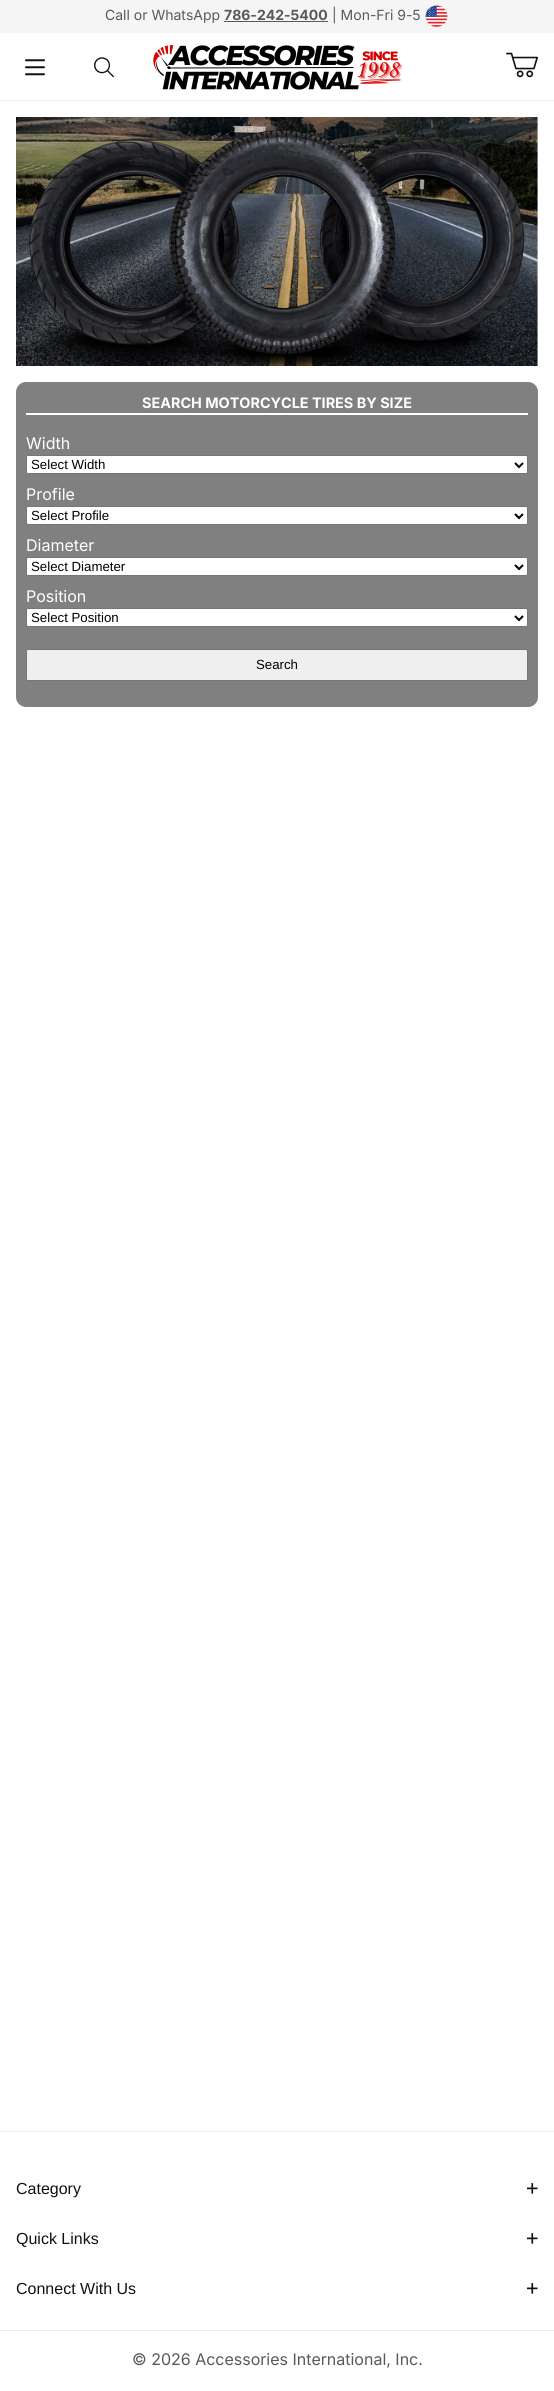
#include <cairo.h>
#include <math.h>
#include <stddef.h>

typedef struct { const char *family; double size; int italic, bold; unsigned color; } style_t;
static cairo_t *ctx;

static void ink(unsigned color) {
    cairo_set_source_rgb(ctx, (color >> 16) / 255.0, (color >> 8 & 255) / 255.0, (color & 255) / 255.0);
}

static void write(double x, double y, const char *s, const style_t *st) {
    cairo_select_font_face(ctx, st->family, st->italic ? CAIRO_FONT_SLANT_ITALIC : CAIRO_FONT_SLANT_NORMAL,
        st->bold ? CAIRO_FONT_WEIGHT_BOLD : CAIRO_FONT_WEIGHT_NORMAL);
    cairo_set_font_size(ctx, st->size);
    ink(st->color);
    cairo_move_to(ctx, x, y);
    cairo_show_text(ctx, s);
}

static void block(double x, double y, double w, double h, unsigned color) {
    ink(color);
    cairo_rectangle(ctx, x, y, w, h);
    cairo_fill(ctx);
}

static void round_path(double x, double y, double w, double h, double r) {
    cairo_new_sub_path(ctx);
    cairo_arc(ctx, x + w - r, y + h - r, r, 0, M_PI / 2);
    cairo_arc(ctx, x + r, y + h - r, r, M_PI / 2, M_PI);
    cairo_arc(ctx, x + r, y + r, r, M_PI, 1.5 * M_PI);
    cairo_arc(ctx, x + w - r, y + r, r, 1.5 * M_PI, 2 * M_PI);
    cairo_close_path(ctx);
}

static void paste(const char *path, double x, double y, double w, double h) {
    cairo_surface_t *image = cairo_image_surface_create_from_png(path);
    cairo_save(ctx);
    cairo_set_source_surface(ctx, image, x, y);
    cairo_rectangle(ctx, x, y, w, h);
    cairo_fill(ctx);
    cairo_restore(ctx);
    cairo_surface_destroy(image);
}

static const style_t s1 = {"Inter", 14, 0, 0, 0x575a5d};
static const style_t s2 = {"Inter", 14, 0, 1, 0x575a5d};
static const style_t s3 = {"Inter", 14.4, 0, 1, 0xffffff};
static const style_t s4 = {"Inter", 16, 0, 0, 0xffffff};
static const style_t s5 = {"Liberation Sans", 13.25, 0, 0, 0x000000};
static const style_t s6 = {"Liberation Sans", 16, 0, 0, 0x111111};
static const style_t s7 = {"Inter", 16, 0, 0, 0x575a5d};

int main(void) {
    cairo_surface_t *surface = cairo_image_surface_create(CAIRO_FORMAT_RGB24, 554, 2391);
    ctx = cairo_create(surface);
    cairo_font_options_t *options = cairo_font_options_create();
    cairo_font_options_set_hint_metrics(options, CAIRO_HINT_METRICS_OFF);
    cairo_font_options_set_hint_style(options, CAIRO_HINT_STYLE_NONE);
    cairo_set_font_options(ctx, options);
    cairo_set_miter_limit(ctx, 4);
    ink(0xffffff);
    cairo_paint(ctx);
    block(0, 100, 554, 1, 0xeaeaea);
    block(0, 0, 554, 33, 0xf5f5f5);
    write(105, 20, "Call or WhatsApp", &s1);
    write(224, 20, "786-242-5400", &s2);
    block(224, 21, 104, 1, 0x575a5d);
    write(332, 20, "| Mon-Fri 9-5", &s1);
    paste("pic1.png", 425, 5, 23, 22);
    paste("pic2.png", 25, 59, 20, 17);
    paste("pic3.png", 94, 57, 20, 21);
    paste("pic4.png", 153, 45, 249, 45);
    paste("pic5.png", 506, 52, 32, 26);
    paste("pic6.png", 16, 117, 522, 249);
    ink(0x808080);
    round_path(16, 382, 522, 325, 10);
    cairo_fill(ctx);
    block(26, 413, 502, 2, 0xffffff);
    write(142, 408, "SEARCH MOTORCYCLE TIRES BY SIZE", &s3);
    write(26, 449, "Width", &s4);
    round_path(26.5, 455.5, 501, 18, 1.5);
    cairo_fill_preserve(ctx);
    ink(0x767676);
    cairo_set_line_width(ctx, 1);
    cairo_stroke(ctx);
    cairo_new_path(ctx);
    cairo_move_to(ctx, 515, 463);
    cairo_line_to(ctx, 519, 467);
    cairo_line_to(ctx, 523, 463);
    ink(0x000000);
    cairo_set_line_width(ctx, 2);
    cairo_stroke(ctx);
    write(31, 469, "Select Width", &s5);
    write(26, 500, "Profile", &s4);
    round_path(26.5, 506.5, 501, 18, 1.5);
    cairo_fill_preserve(ctx);
    ink(0x767676);
    cairo_set_line_width(ctx, 1);
    cairo_stroke(ctx);
    cairo_new_path(ctx);
    cairo_move_to(ctx, 515, 514);
    cairo_line_to(ctx, 519, 518);
    cairo_line_to(ctx, 523, 514);
    ink(0x000000);
    cairo_set_line_width(ctx, 2);
    cairo_stroke(ctx);
    write(31, 520, "Select Profile", &s5);
    write(26, 551, "Diameter", &s4);
    round_path(26.5, 557.5, 501, 18, 1.5);
    cairo_fill_preserve(ctx);
    ink(0x767676);
    cairo_set_line_width(ctx, 1);
    cairo_stroke(ctx);
    cairo_new_path(ctx);
    cairo_move_to(ctx, 515, 565);
    cairo_line_to(ctx, 519, 569);
    cairo_line_to(ctx, 523, 565);
    ink(0x000000);
    cairo_set_line_width(ctx, 2);
    cairo_stroke(ctx);
    write(31, 571, "Select Diameter", &s5);
    write(26, 602, "Position", &s4);
    round_path(26.5, 608.5, 501, 18, 1.5);
    cairo_fill_preserve(ctx);
    ink(0x767676);
    cairo_set_line_width(ctx, 1);
    cairo_stroke(ctx);
    cairo_new_path(ctx);
    cairo_move_to(ctx, 515, 616);
    cairo_line_to(ctx, 519, 620);
    cairo_line_to(ctx, 523, 616);
    ink(0x000000);
    cairo_set_line_width(ctx, 2);
    cairo_stroke(ctx);
    write(31, 622, "Select Position", &s5);
    ink(0xefefef);
    round_path(26.5, 649.5, 501, 31, 1.5);
    cairo_fill_preserve(ctx);
    ink(0x767676);
    cairo_set_line_width(ctx, 1);
    cairo_stroke(ctx);
    write(256, 669, "Search", &s5);
    block(0, 2131, 554, 1, 0xeaeaea);
    write(16, 2194, "Category", &s6);
    paste("pic7.png", 527, 2183, 11, 11);
    write(16, 2244, "Quick Links", &s6);
    paste("pic7.png", 527, 2233, 11, 11);
    write(16, 2294, "Connect With Us", &s6);
    paste("pic7.png", 527, 2283, 11, 11);
    block(0, 2330, 554, 1, 0xeaeaea);
    write(132, 2365, "© 2026 Accessories International, Inc.", &s7);
    cairo_surface_write_to_png(surface, "screenshot.png");
    cairo_font_options_destroy(options);
    cairo_destroy(ctx);
    cairo_surface_destroy(surface);
    return 0;
}
